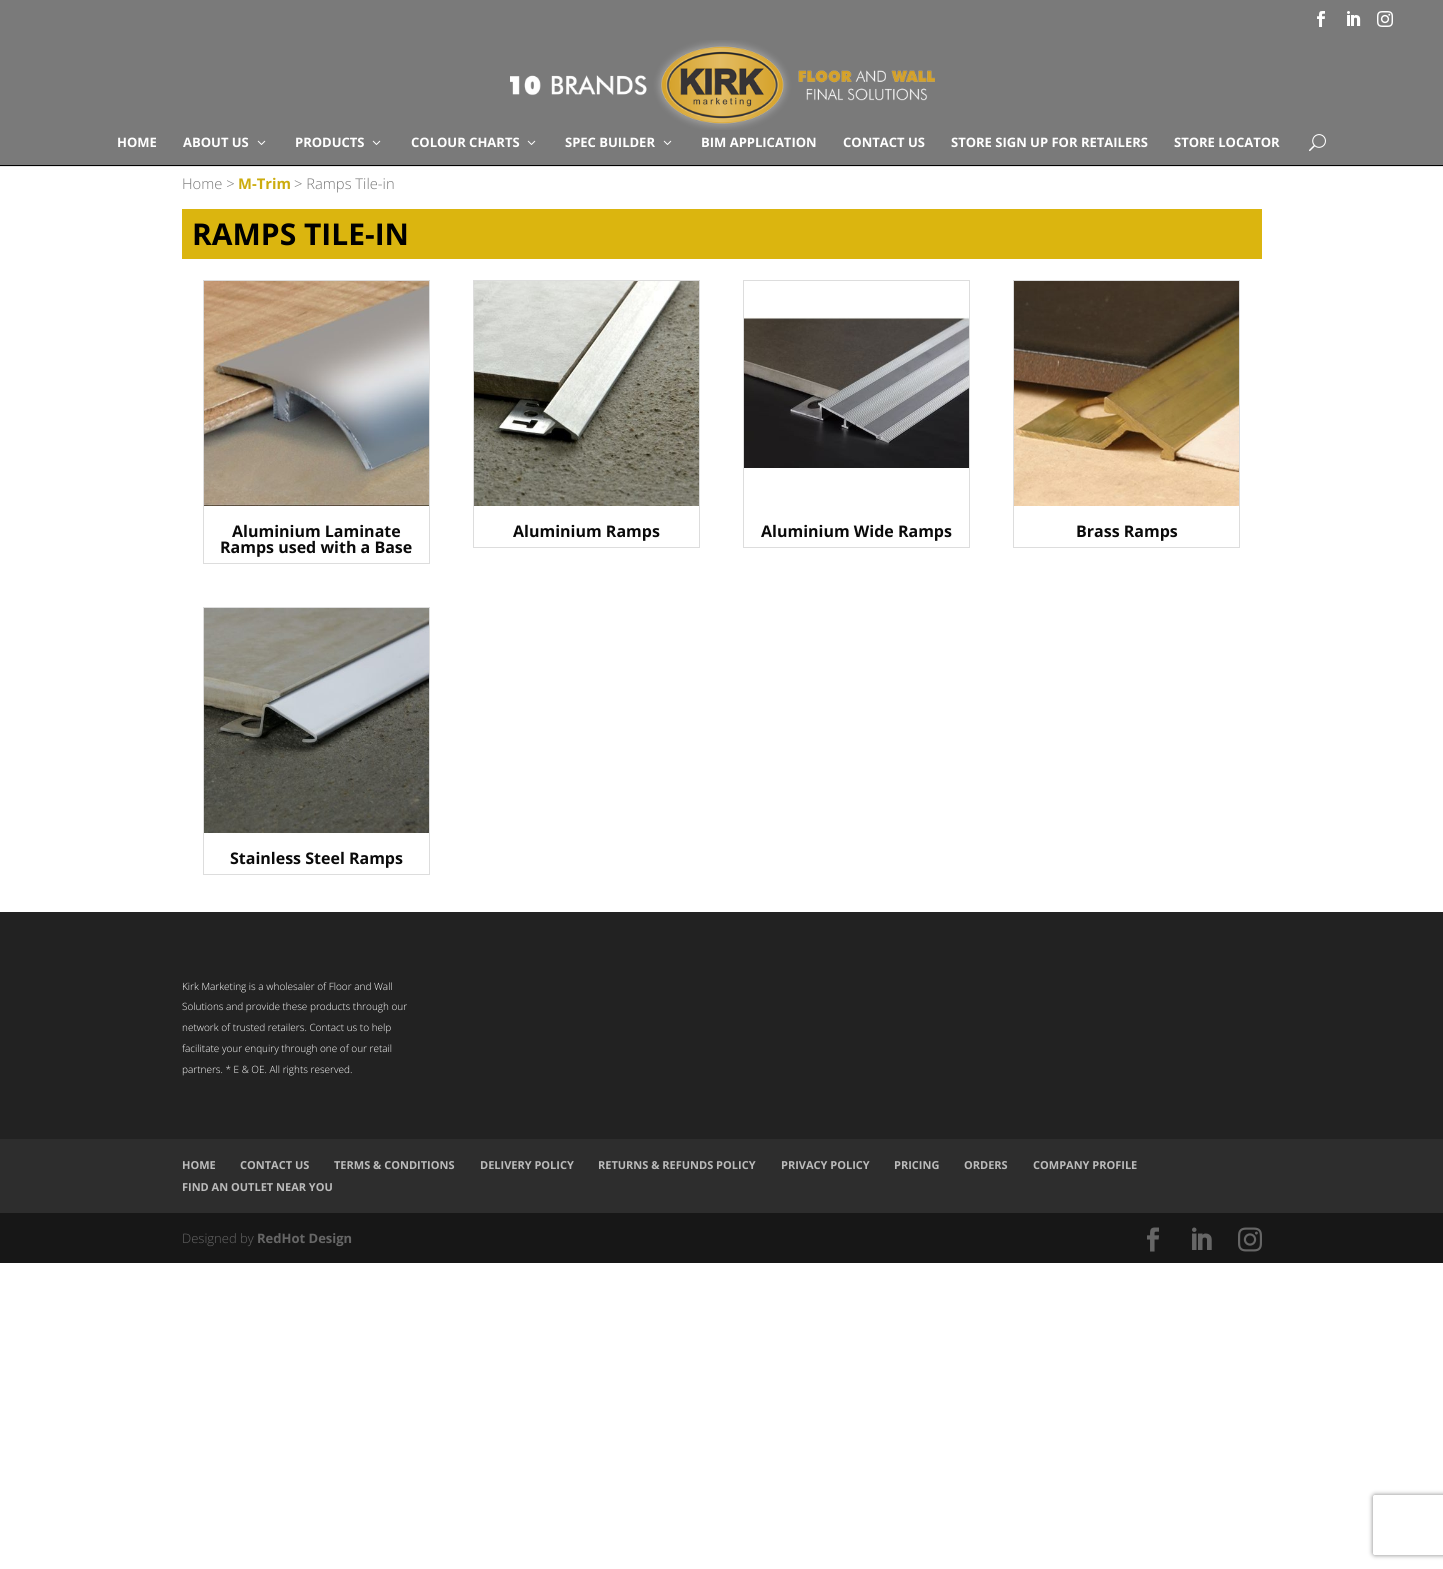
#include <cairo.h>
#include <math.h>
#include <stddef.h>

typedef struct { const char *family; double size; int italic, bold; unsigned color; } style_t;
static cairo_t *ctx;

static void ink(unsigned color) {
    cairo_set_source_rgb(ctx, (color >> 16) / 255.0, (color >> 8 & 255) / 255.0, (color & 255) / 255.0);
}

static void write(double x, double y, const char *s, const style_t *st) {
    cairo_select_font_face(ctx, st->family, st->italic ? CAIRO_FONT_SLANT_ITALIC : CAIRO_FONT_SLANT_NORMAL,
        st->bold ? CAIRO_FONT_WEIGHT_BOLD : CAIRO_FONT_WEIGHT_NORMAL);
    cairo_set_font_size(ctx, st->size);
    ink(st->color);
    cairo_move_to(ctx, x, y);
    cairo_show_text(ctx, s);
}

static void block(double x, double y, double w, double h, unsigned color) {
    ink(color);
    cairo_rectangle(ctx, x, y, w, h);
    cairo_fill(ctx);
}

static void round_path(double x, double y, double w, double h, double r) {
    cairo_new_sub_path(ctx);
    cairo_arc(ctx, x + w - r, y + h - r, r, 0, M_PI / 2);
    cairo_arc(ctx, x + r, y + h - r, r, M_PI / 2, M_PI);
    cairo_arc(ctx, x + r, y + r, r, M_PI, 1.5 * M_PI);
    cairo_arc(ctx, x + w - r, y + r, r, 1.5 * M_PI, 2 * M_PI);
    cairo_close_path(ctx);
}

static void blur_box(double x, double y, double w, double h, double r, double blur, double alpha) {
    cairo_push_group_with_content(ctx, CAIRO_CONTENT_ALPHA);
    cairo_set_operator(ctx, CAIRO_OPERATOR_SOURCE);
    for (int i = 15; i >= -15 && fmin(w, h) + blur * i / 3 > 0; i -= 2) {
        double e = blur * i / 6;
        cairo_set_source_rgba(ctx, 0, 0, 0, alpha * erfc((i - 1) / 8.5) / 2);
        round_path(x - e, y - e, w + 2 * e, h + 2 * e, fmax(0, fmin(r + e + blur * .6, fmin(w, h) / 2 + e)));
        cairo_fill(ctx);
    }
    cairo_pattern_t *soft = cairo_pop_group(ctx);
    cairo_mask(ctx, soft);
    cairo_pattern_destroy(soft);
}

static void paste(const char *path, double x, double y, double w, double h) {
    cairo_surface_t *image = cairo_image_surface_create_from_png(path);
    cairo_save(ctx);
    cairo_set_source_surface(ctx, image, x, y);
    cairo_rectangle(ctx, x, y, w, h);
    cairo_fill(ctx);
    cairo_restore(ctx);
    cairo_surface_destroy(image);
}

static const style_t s1 = {"Open Sans", 13, 0, 1, 0xffffff};
static const style_t s2 = {"Open Sans Light", 14.75, 0, 0, 0x767676};
static const style_t s3 = {"Open Sans", 14.75, 0, 1, 0xccac0e};
static const style_t s4 = {"Open Sans", 30, 0, 1, 0x000000};
static const style_t s5 = {"Open Sans", 16, 0, 1, 0x0a0a0a};
static const style_t s6 = {"Open Sans Light", 10, 0, 0, 0xffffff};
static const style_t s7 = {"Open Sans", 11, 0, 1, 0xbbbbbb};
static const style_t s8 = {"Open Sans Light", 13, 0, 0, 0x666666};
static const style_t s9 = {"Open Sans", 13, 0, 1, 0x666666};

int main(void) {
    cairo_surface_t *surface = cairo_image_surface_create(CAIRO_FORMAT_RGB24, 1443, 1569);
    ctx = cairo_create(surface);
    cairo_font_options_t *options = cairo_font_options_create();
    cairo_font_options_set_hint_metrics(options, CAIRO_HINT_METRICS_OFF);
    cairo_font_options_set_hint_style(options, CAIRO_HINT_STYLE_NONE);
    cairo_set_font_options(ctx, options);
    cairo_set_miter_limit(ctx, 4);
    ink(0xffffff);
    cairo_paint(ctx);
    block(0, 0, 1443, 165, 0x7a7a7a);
    paste("pic1.png", 1317, 11, 8, 16);
    paste("pic2.png", 1347, 11, 14, 15);
    paste("pic3.png", 1377, 11, 16, 16);
    block(0, 166, 1443, 1, 0xe6e6e6);
    block(0, 165, 1443, 1, 0x000000);
    paste("pic4.png", 510, 40, 425, 90);
    write(117, 147, "HOME", &s1);
    write(183, 147, "ABOUT US", &s1);
    paste("pic5.png", 257, 140, 9, 5);
    write(295, 147, "PRODUCTS", &s1);
    paste("pic5.png", 372, 140, 9, 5);
    write(411, 147, "COLOUR CHARTS", &s1);
    paste("pic5.png", 527, 140, 9, 5);
    write(565, 147, "SPEC BUILDER", &s1);
    paste("pic5.png", 663, 140, 9, 5);
    write(701, 147, "BIM APPLICATION", &s1);
    write(843, 147, "CONTACT US", &s1);
    write(951, 147, "STORE SIGN UP FOR RETAILERS", &s1);
    write(1174, 147, "STORE LOCATOR", &s1);
    paste("pic6.png", 1309, 134, 17, 18);
    write(182, 189, "Home >", &s2);
    write(238, 189, "M-Trim", &s3);
    write(294, 189, "> Ramps Tile-in", &s2);
    block(182, 209, 1080, 50, 0xdbb50f);
    write(192, 245, "RAMPS TILE-IN", &s4);
    cairo_rectangle(ctx, 203.5, 280.5, 226, 283);
    ink(0xdddddd);
    cairo_set_line_width(ctx, 1);
    cairo_stroke(ctx);
    paste("pic7.png", 204, 281, 225, 225);
    write(232, 537, "Aluminium Laminate", &s5);
    write(220, 553, "Ramps used with a Base", &s5);
    cairo_rectangle(ctx, 473.5, 280.5, 226, 267);
    ink(0xdddddd);
    cairo_stroke(ctx);
    paste("pic8.png", 474, 281, 225, 225);
    write(513, 537, "Aluminium Ramps", &s5);
    cairo_rectangle(ctx, 743.5, 280.5, 226, 267);
    ink(0xdddddd);
    cairo_stroke(ctx);
    paste("pic9.png", 744, 317, 225, 151);
    write(761, 537, "Aluminium Wide Ramps", &s5);
    cairo_rectangle(ctx, 1013.5, 280.5, 226, 267);
    ink(0xdddddd);
    cairo_stroke(ctx);
    paste("pic10.png", 1014, 281, 225, 225);
    write(1076, 537, "Brass Ramps", &s5);
    cairo_rectangle(ctx, 203.5, 607.5, 226, 267);
    ink(0xdddddd);
    cairo_stroke(ctx);
    paste("pic11.png", 204, 608, 225, 225);
    write(230, 864, "Stainless Steel Ramps", &s5);
    block(0, 912, 1443, 227, 0x222222);
    write(182, 990, "Kirk Marketing is a wholesaler of Floor and Wall", &s6);
    write(182, 1010, "Solutions and provide these products through our", &s6);
    write(182, 1031, "network of trusted retailers. Contact us to help", &s6);
    write(182, 1052, "facilitate your enquiry through one of our retail", &s6);
    write(182, 1073, "partners. * E & OE. All rights reserved.", &s6);
    block(0, 1139, 1443, 74, 0x2d2d2d);
    write(182, 1169, "HOME", &s7);
    write(240, 1169, "CONTACT US", &s7);
    write(334, 1169, "TERMS & CONDITIONS", &s7);
    write(480, 1169, "DELIVERY POLICY", &s7);
    write(598, 1169, "RETURNS & REFUNDS POLICY", &s7);
    write(781, 1169, "PRIVACY POLICY", &s7);
    write(894, 1169, "PRICING", &s7);
    write(964, 1169, "ORDERS", &s7);
    write(1033, 1169, "COMPANY PROFILE", &s7);
    write(182, 1191, "FIND AN OUTLET NEAR YOU", &s7);
    block(0, 1213, 1443, 50, 0x171717);
    write(182, 1243, "Designed by", &s8);
    write(257, 1243, "RedHot Design", &s9);
    paste("pic12.png", 1147, 1227, 12, 25);
    paste("pic13.png", 1192, 1227, 20, 23);
    paste("pic14.png", 1238, 1227, 24, 25);
    cairo_save(ctx);
    cairo_set_fill_rule(ctx, CAIRO_FILL_RULE_EVEN_ODD);
    cairo_new_path(ctx);
    cairo_move_to(ctx, 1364, 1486);
    cairo_line_to(ctx, 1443, 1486);
    cairo_line_to(ctx, 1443, 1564);
    cairo_line_to(ctx, 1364, 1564);
    cairo_close_path(ctx);
    cairo_move_to(ctx, 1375, 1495);
    cairo_line_to(ctx, 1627, 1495);
    cairo_curve_to(ctx, 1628, 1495, 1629, 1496, 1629, 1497);
    cairo_line_to(ctx, 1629, 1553);
    cairo_curve_to(ctx, 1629, 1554, 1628, 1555, 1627, 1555);
    cairo_line_to(ctx, 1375, 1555);
    cairo_curve_to(ctx, 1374, 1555, 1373, 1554, 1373, 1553);
    cairo_line_to(ctx, 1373, 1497);
    cairo_curve_to(ctx, 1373, 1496, 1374, 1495, 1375, 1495);
    cairo_close_path(ctx);
    cairo_clip(ctx);
    ink(0x808080);
    blur_box(1373, 1495, 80, 60, 2, 2.5, 1);
    cairo_restore(ctx);
    cairo_surface_write_to_png(surface, "screenshot.png");
    cairo_font_options_destroy(options);
    cairo_destroy(ctx);
    cairo_surface_destroy(surface);
    return 0;
}
